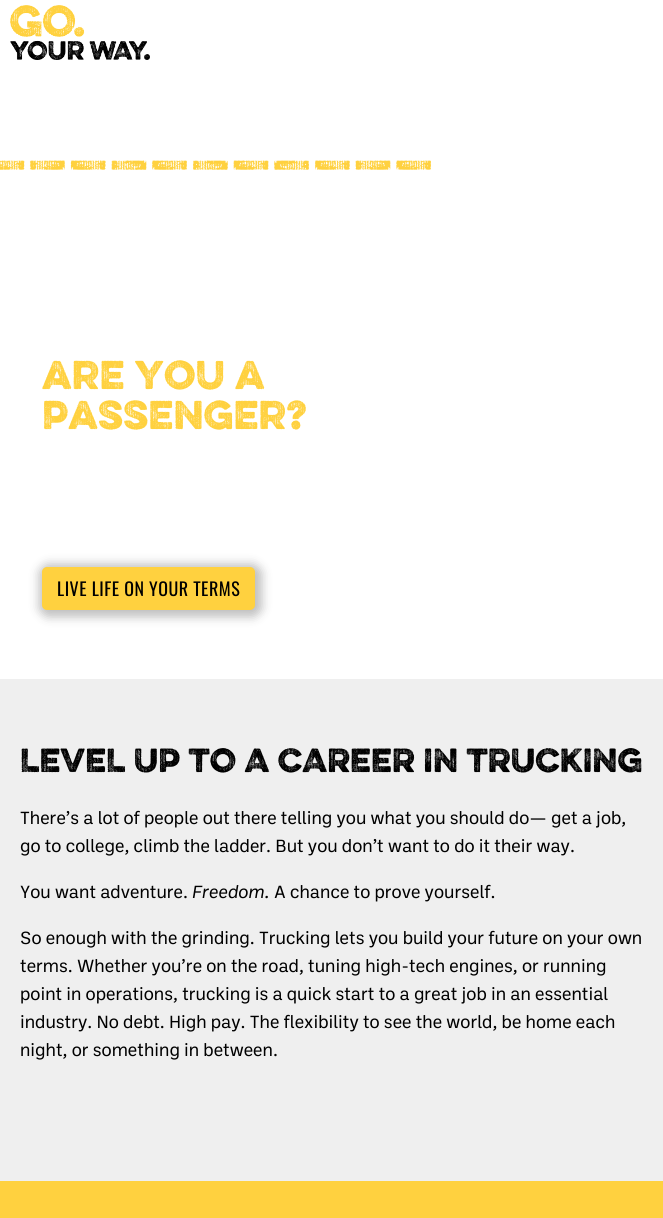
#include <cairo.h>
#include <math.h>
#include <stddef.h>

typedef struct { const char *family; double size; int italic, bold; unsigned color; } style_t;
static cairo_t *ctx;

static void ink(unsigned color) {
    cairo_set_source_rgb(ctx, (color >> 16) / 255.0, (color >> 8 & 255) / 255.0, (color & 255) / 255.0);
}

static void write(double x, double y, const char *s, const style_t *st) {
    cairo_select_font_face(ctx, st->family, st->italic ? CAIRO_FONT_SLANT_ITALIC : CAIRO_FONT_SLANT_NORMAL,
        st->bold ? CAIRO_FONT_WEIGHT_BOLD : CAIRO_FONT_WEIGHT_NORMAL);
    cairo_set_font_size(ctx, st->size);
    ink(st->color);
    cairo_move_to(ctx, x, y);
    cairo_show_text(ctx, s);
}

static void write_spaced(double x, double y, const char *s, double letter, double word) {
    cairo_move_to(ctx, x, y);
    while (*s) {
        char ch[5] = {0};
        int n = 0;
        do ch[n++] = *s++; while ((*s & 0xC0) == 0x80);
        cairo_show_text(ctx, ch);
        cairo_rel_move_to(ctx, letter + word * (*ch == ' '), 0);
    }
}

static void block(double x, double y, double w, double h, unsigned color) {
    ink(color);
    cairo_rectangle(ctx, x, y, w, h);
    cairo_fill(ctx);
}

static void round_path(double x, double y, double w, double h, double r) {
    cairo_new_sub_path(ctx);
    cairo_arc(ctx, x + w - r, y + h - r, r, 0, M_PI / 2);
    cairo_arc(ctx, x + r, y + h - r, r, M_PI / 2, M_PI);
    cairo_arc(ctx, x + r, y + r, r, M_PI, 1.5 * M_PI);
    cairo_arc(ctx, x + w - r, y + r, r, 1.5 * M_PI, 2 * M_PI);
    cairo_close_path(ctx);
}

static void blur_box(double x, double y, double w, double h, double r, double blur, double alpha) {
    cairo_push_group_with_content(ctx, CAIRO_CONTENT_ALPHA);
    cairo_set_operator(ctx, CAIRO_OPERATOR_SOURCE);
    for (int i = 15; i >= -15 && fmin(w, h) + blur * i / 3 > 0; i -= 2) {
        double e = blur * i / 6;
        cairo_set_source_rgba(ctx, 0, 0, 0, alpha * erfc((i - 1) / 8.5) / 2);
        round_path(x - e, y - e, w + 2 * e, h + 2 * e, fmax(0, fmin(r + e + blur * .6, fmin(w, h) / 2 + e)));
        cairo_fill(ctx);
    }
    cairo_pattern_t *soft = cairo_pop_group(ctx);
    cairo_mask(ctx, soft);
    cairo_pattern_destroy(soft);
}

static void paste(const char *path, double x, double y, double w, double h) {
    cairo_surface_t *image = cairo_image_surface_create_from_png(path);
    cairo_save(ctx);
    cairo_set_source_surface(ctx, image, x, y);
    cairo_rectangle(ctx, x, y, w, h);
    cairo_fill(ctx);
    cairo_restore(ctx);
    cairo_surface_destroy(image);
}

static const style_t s1 = {"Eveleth", 36, 0, 0, 0xffd13f};
static const style_t s2 = {"Eveleth", 30, 0, 0, 0x000000};
static const style_t s3 = {"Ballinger", 18, 0, 0, 0x000000};
static const style_t s4 = {"Ballinger", 18, 1, 0, 0x000000};

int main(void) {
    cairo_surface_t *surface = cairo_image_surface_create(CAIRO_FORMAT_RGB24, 663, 1218);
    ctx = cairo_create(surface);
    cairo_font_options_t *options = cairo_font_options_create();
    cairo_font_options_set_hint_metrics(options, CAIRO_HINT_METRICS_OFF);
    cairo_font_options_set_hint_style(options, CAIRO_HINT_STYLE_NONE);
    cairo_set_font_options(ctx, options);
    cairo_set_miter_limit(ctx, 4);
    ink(0xffffff);
    cairo_paint(ctx);
    paste("pic1.png", 10, 5, 140, 55);
    paste("pic2.png", 0, 160, 431, 10);
    write(42, 389, "are you a", &s1);
    write(42, 429, "passenger?", &s1);
    ink(0x000000);
    blur_box(39, 564, 223, 53, 10, 5, 0.25);
    ink(0xffd13f);
    round_path(42, 567, 213, 43, 5);
    cairo_fill(ctx);
    cairo_select_font_face(ctx, "Oswald", CAIRO_FONT_SLANT_NORMAL, CAIRO_FONT_WEIGHT_NORMAL);
    cairo_set_font_size(ctx, 18);
    ink(0x000000);
    write_spaced(57, 596, "LIVE LIFE ON YOUR TERMS", 0.5, 0);
    block(0, 679, 663, 502, 0xefefef);
    write(20, 772, "LEVEL UP TO A CAREER IN TRUCKING", &s2);
    write(20, 824, "There’s a lot of people out there telling you what you should do— get a job,", &s3);
    write(20, 852, "go to college, climb the ladder. But you don’t want to do it their way.", &s3);
    write(20, 898, "You want adventure.", &s3);
    write(192, 898, "Freedom.", &s4);
    write(274, 898, "A chance to prove yourself.", &s3);
    write(20, 944, "So enough with the grinding. Trucking lets you build your future on your own", &s3);
    write(20, 972, "terms. Whether you’re on the road, tuning high-tech engines, or running", &s3);
    write(20, 1000, "point in operations, trucking is a quick start to a great job in an essential", &s3);
    write(20, 1028, "industry. No debt. High pay. The flexibility to see the world, be home each", &s3);
    write(20, 1056, "night, or something in between.", &s3);
    block(0, 1181, 663, 37, 0xffd13f);
    cairo_surface_write_to_png(surface, "screenshot.png");
    cairo_font_options_destroy(options);
    cairo_destroy(ctx);
    cairo_surface_destroy(surface);
    return 0;
}
